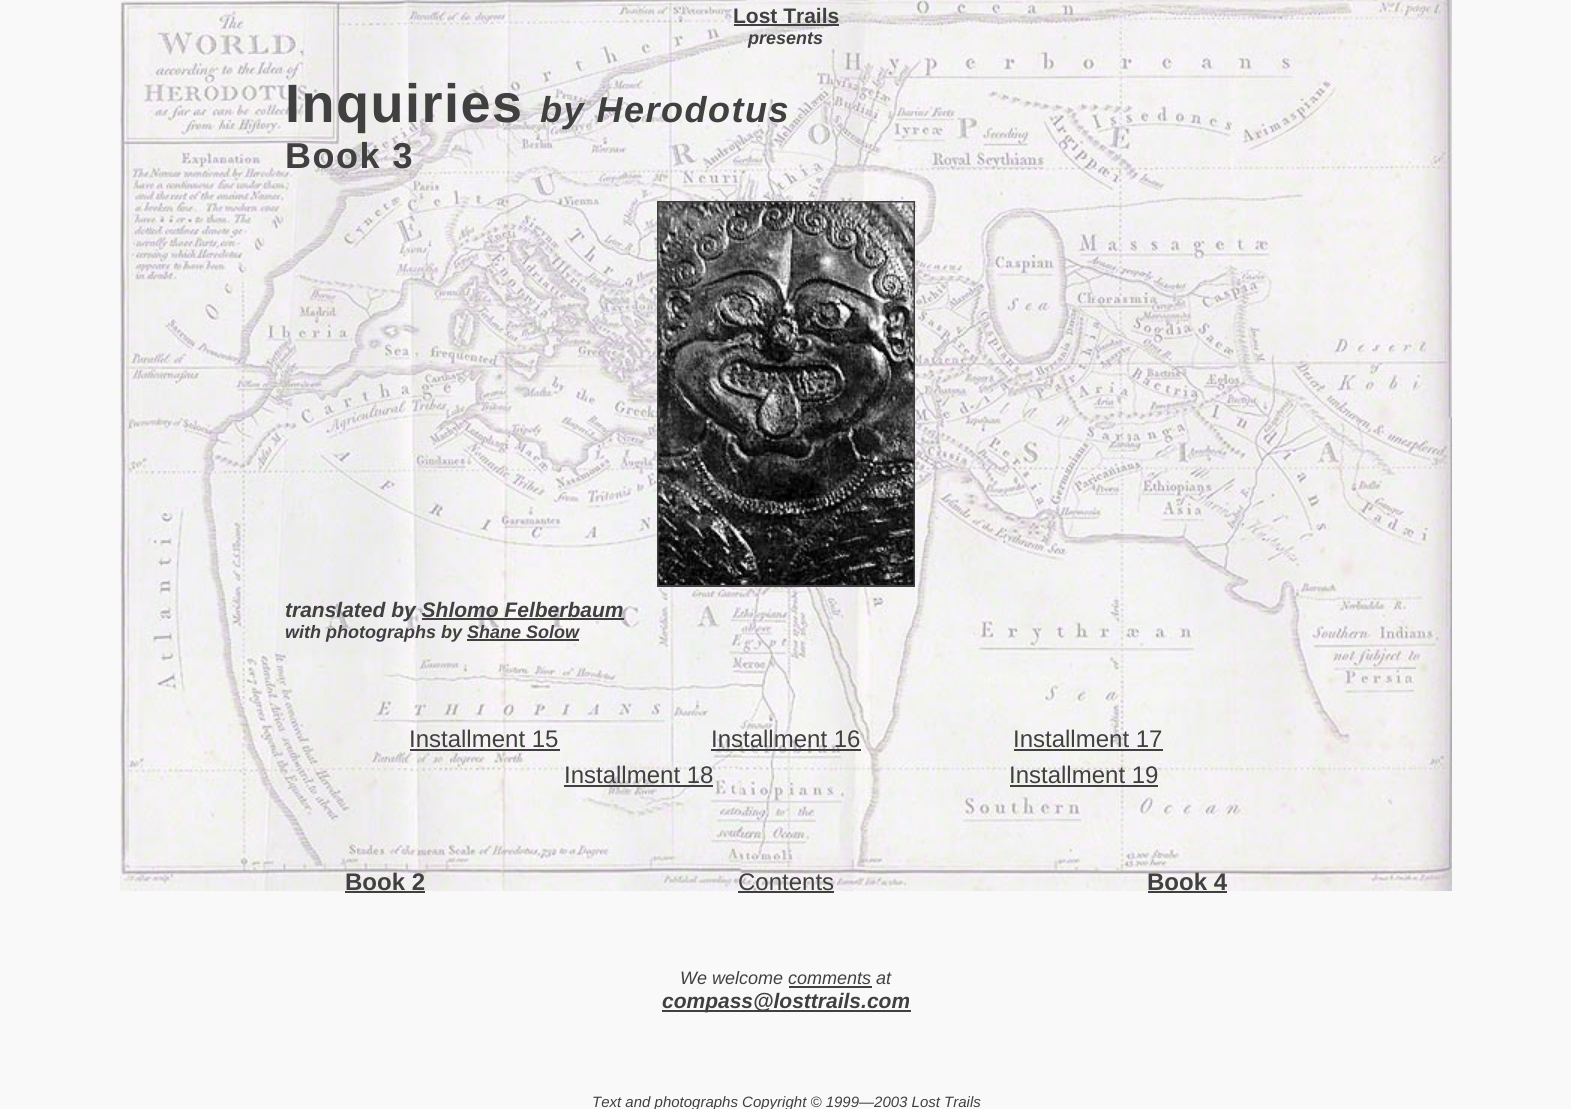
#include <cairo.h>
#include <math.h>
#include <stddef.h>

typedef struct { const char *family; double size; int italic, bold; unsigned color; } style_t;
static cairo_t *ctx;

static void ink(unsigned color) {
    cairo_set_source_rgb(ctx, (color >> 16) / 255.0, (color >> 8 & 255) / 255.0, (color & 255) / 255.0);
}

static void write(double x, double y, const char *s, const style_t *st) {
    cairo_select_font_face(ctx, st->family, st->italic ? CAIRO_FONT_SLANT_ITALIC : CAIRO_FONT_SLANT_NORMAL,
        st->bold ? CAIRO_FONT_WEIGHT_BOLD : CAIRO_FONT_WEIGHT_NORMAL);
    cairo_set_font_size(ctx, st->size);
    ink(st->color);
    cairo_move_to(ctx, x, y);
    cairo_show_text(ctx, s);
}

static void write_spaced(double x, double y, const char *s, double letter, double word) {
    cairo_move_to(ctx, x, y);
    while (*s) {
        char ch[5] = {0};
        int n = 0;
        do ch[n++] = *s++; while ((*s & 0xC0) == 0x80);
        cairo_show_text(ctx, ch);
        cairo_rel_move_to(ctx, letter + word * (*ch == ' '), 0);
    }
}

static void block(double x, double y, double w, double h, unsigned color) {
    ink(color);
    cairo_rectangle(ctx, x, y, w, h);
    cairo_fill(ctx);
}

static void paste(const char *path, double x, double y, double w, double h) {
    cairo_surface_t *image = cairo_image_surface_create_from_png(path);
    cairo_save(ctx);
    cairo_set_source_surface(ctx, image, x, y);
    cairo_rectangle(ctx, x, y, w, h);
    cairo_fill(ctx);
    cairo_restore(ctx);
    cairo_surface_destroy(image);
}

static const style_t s1 = {"Liberation Sans", 21, 0, 1, 0x404040};
static const style_t s2 = {"Liberation Sans", 18, 1, 1, 0x404040};
static const style_t s3 = {"Liberation Sans", 21, 1, 1, 0x404040};
static const style_t s4 = {"Liberation Sans", 24, 0, 0, 0x404040};
static const style_t s5 = {"Liberation Sans", 24, 0, 1, 0x404040};
static const style_t s6 = {"Liberation Sans", 18, 1, 0, 0x404040};
static const style_t s7 = {"Liberation Sans", 15, 1, 0, 0x404040};

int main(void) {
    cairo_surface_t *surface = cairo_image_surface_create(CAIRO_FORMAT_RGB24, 1571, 1109);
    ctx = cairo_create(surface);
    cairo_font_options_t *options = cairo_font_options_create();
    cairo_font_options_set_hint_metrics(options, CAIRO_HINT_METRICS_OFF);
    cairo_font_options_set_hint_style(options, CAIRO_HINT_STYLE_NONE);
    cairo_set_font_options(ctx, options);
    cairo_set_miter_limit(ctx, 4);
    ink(0xf9f9f9);
    cairo_paint(ctx);
    paste("pic1.png", 120, 0, 1332, 891);
    write(733, 23, "Lost Trails", &s1);
    block(734, 24, 105, 2, 0x404040);
    write(748, 44, "presents", &s2);
    cairo_select_font_face(ctx, "Liberation Sans", CAIRO_FONT_SLANT_NORMAL, CAIRO_FONT_WEIGHT_BOLD);
    cairo_set_font_size(ctx, 54);
    write_spaced(285, 122, "Inquiries", 1.5, 0);
    cairo_select_font_face(ctx, "Liberation Sans", CAIRO_FONT_SLANT_ITALIC, CAIRO_FONT_WEIGHT_BOLD);
    cairo_set_font_size(ctx, 36);
    write_spaced(540, 122, "by Herodotus", 1.5, 0);
    cairo_select_font_face(ctx, "Liberation Sans", CAIRO_FONT_SLANT_NORMAL, CAIRO_FONT_WEIGHT_BOLD);
    write_spaced(285, 168, "Book 3", 1.5, 0);
    cairo_rectangle(ctx, 658, 202, 256, 384);
    cairo_stroke(ctx);
    paste("pic2.png", 658, 202, 256, 383);
    write(285, 617, "translated by Shlomo Felberbaum", &s3);
    block(422, 618, 202, 2, 0x404040);
    write(285, 638, "with photographs by Shane Solow", &s2);
    block(467, 639, 112, 2, 0x404040);
    write(409, 747, "Installment 15", &s4);
    block(410, 749, 150, 2, 0x404040);
    write(711, 747, "Installment 16", &s4);
    block(711, 749, 150, 2, 0x404040);
    write(1013, 747, "Installment 17", &s4);
    block(1014, 749, 149, 2, 0x404040);
    write(564, 783, "Installment 18", &s4);
    block(564, 785, 149, 2, 0x404040);
    write(1009, 783, "Installment 19", &s4);
    block(1010, 785, 148, 2, 0x404040);
    write(345, 890, "Book 2", &s5);
    block(345, 891, 80, 2, 0x404040);
    write(738, 890, "Contents", &s4);
    block(738, 891, 96, 2, 0x404040);
    write(1147, 890, "Book 4", &s5);
    block(1148, 891, 79, 2, 0x404040);
    write(680, 984, "We welcome comments at", &s6);
    block(789, 986, 83, 2, 0x404040);
    block(662, 1010, 249, 2, 0x404040);
    write(662, 1008, "compass@losttrails.com", &s3);
    write(592, 1107, "Text and photographs Copyright © 1999—2003 Lost Trails", &s7);
    cairo_surface_write_to_png(surface, "screenshot.png");
    cairo_font_options_destroy(options);
    cairo_destroy(ctx);
    cairo_surface_destroy(surface);
    return 0;
}
